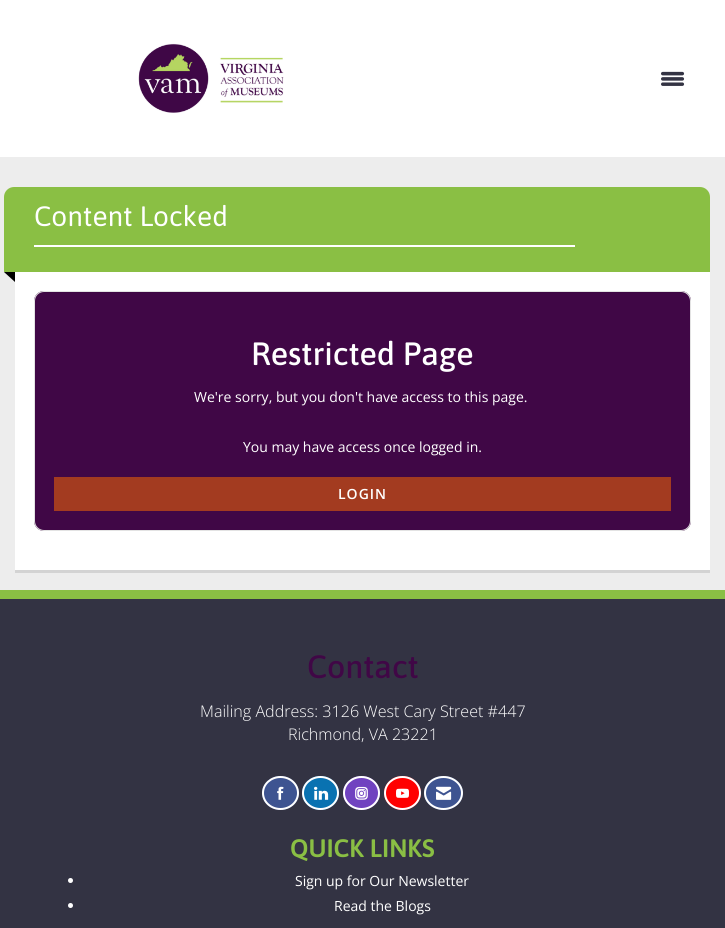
#include <cairo.h>
#include <math.h>
#include <stddef.h>

typedef struct { const char *family; double size; int italic, bold; unsigned color; } style_t;
static cairo_t *ctx;

static void ink(unsigned color) {
    cairo_set_source_rgb(ctx, (color >> 16) / 255.0, (color >> 8 & 255) / 255.0, (color & 255) / 255.0);
}

static void write(double x, double y, const char *s, const style_t *st) {
    cairo_select_font_face(ctx, st->family, st->italic ? CAIRO_FONT_SLANT_ITALIC : CAIRO_FONT_SLANT_NORMAL,
        st->bold ? CAIRO_FONT_WEIGHT_BOLD : CAIRO_FONT_WEIGHT_NORMAL);
    cairo_set_font_size(ctx, st->size);
    ink(st->color);
    cairo_move_to(ctx, x, y);
    cairo_show_text(ctx, s);
}

static void write_spaced(double x, double y, const char *s, double letter, double word) {
    cairo_move_to(ctx, x, y);
    while (*s) {
        char ch[5] = {0};
        int n = 0;
        do ch[n++] = *s++; while ((*s & 0xC0) == 0x80);
        cairo_show_text(ctx, ch);
        cairo_rel_move_to(ctx, letter + word * (*ch == ' '), 0);
    }
}

static void block(double x, double y, double w, double h, unsigned color) {
    ink(color);
    cairo_rectangle(ctx, x, y, w, h);
    cairo_fill(ctx);
}

static void round_path(double x, double y, double w, double h, double r) {
    cairo_new_sub_path(ctx);
    cairo_arc(ctx, x + w - r, y + h - r, r, 0, M_PI / 2);
    cairo_arc(ctx, x + r, y + h - r, r, M_PI / 2, M_PI);
    cairo_arc(ctx, x + r, y + r, r, M_PI, 1.5 * M_PI);
    cairo_arc(ctx, x + w - r, y + r, r, 1.5 * M_PI, 2 * M_PI);
    cairo_close_path(ctx);
}

static void paste(const char *path, double x, double y, double w, double h) {
    cairo_surface_t *image = cairo_image_surface_create_from_png(path);
    cairo_save(ctx);
    cairo_set_source_surface(ctx, image, x, y);
    cairo_rectangle(ctx, x, y, w, h);
    cairo_fill(ctx);
    cairo_restore(ctx);
    cairo_surface_destroy(image);
}

static const style_t s1 = {"Asap", 28, 0, 0, 0xffffff};
static const style_t s2 = {"Asap Medium", 32.25, 0, 0, 0xffffff};
static const style_t s3 = {"Open Sans", 14, 0, 0, 0xffffff};
static const style_t s4 = {"Asap Medium", 32.25, 0, 0, 0x400746};
static const style_t s5 = {"Open Sans Light", 16.1, 0, 0, 0xffffff};
static const style_t s6 = {"Asap SemiBold", 25.25, 0, 0, 0x8abf44};

int main(void) {
    cairo_surface_t *surface = cairo_image_surface_create(CAIRO_FORMAT_RGB24, 725, 928);
    ctx = cairo_create(surface);
    cairo_font_options_t *options = cairo_font_options_create();
    cairo_font_options_set_hint_metrics(options, CAIRO_HINT_METRICS_OFF);
    cairo_font_options_set_hint_style(options, CAIRO_HINT_STYLE_NONE);
    cairo_set_font_options(ctx, options);
    cairo_set_miter_limit(ctx, 4);
    ink(0xffffff);
    cairo_paint(ctx);
    paste("pic1.png", 138, 43, 146, 70);
    paste("pic2.png", 661, 71, 24, 15);
    block(0, 157, 725, 433, 0xededed);
    ink(0x8abf44);
    cairo_new_path(ctx);
    cairo_move_to(ctx, 14, 187);
    cairo_line_to(ctx, 700, 187);
    cairo_curve_to(ctx, 705.5, 187, 710, 191.5, 710, 197);
    cairo_line_to(ctx, 710, 272);
    cairo_line_to(ctx, 4, 272);
    cairo_line_to(ctx, 4, 197);
    cairo_curve_to(ctx, 4, 191.5, 8.5, 187, 14, 187);
    cairo_close_path(ctx);
    cairo_fill(ctx);
    block(34, 245, 541, 2, 0xffffff);
    write(34, 226, "Content Locked", &s1);
    ink(0x000000);
    cairo_new_path(ctx);
    cairo_move_to(ctx, 4, 272);
    cairo_line_to(ctx, 15, 272);
    cairo_line_to(ctx, 15, 282);
    cairo_close_path(ctx);
    cairo_fill(ctx);
    block(15, 570, 695, 3, 0xd3d3d3);
    block(15, 272, 695, 298, 0xffffff);
    ink(0x400746);
    round_path(34, 291, 657, 240, 10);
    cairo_fill(ctx);
    ink(0x3d0743);
    cairo_new_path(ctx);
    cairo_move_to(ctx, 44, 293);
    cairo_line_to(ctx, 681, 293);
    cairo_curve_to(ctx, 686, 293, 690, 297, 690, 302);
    cairo_curve_to(ctx, 690, 297, 687, 292, 681, 292);
    cairo_line_to(ctx, 44, 292);
    cairo_curve_to(ctx, 38, 292, 35, 297, 35, 302);
    cairo_curve_to(ctx, 35, 297, 39, 293, 44, 293);
    cairo_close_path(ctx);
    cairo_fill(ctx);
    round_path(34.5, 291.5, 656, 239, 9.5);
    ink(0xe3e3e3);
    cairo_set_line_width(ctx, 1);
    cairo_stroke(ctx);
    write(251, 365, "Restricted Page", &s2);
    write(194, 402, "We're sorry, but you don't have access to this page.", &s3);
    write(243, 452, "You may have access once logged in.", &s3);
    block(54, 477, 617, 34, 0xa33b20);
    cairo_select_font_face(ctx, "Open Sans SemiBold", CAIRO_FONT_SLANT_NORMAL, CAIRO_FONT_WEIGHT_NORMAL);
    ink(0xffffff);
    write_spaced(338, 499, "LOGIN", 1, 0);
    block(0, 590, 725, 9, 0x8abf44);
    block(0, 599, 725, 329, 0x333343);
    write(307, 678, "Contact", &s4);
    write(200, 717, "Mailing Address: 3126 West Cary Street #447", &s5);
    write(288, 740, "Richmond, VA 23221", &s5);
    ink(0x3e5491);
    cairo_new_path(ctx);
    cairo_move_to(ctx, 280.5, 776);
    cairo_curve_to(ctx, 290.5, 776, 299, 783.5, 299, 793);
    cairo_curve_to(ctx, 299, 802.5, 290.5, 810, 280.5, 810);
    cairo_curve_to(ctx, 270.5, 810, 262, 802.5, 262, 793);
    cairo_curve_to(ctx, 262, 783.5, 270.5, 776, 280.5, 776);
    cairo_close_path(ctx);
    cairo_fill(ctx);
    cairo_new_path(ctx);
    cairo_move_to(ctx, 280.5, 777);
    cairo_curve_to(ctx, 290, 777, 298, 784, 298, 793);
    cairo_curve_to(ctx, 298, 802, 290, 809, 280.5, 809);
    cairo_curve_to(ctx, 271, 809, 263, 802, 263, 793);
    cairo_curve_to(ctx, 263, 784, 271, 777, 280.5, 777);
    cairo_close_path(ctx);
    ink(0xffffff);
    cairo_set_line_width(ctx, 2);
    cairo_stroke(ctx);
    paste("pic3.png", 277, 786, 7, 14);
    ink(0x0972b1);
    cairo_new_path(ctx);
    cairo_move_to(ctx, 320.5, 776);
    cairo_curve_to(ctx, 330.5, 776, 339, 783.5, 339, 793);
    cairo_curve_to(ctx, 339, 802.5, 330.5, 810, 320.5, 810);
    cairo_curve_to(ctx, 310.5, 810, 302, 802.5, 302, 793);
    cairo_curve_to(ctx, 302, 783.5, 310.5, 776, 320.5, 776);
    cairo_close_path(ctx);
    cairo_fill(ctx);
    cairo_new_path(ctx);
    cairo_move_to(ctx, 320.5, 777);
    cairo_curve_to(ctx, 330, 777, 338, 784, 338, 793);
    cairo_curve_to(ctx, 338, 802, 330, 809, 320.5, 809);
    cairo_curve_to(ctx, 311, 809, 303, 802, 303, 793);
    cairo_curve_to(ctx, 303, 784, 311, 777, 320.5, 777);
    cairo_close_path(ctx);
    ink(0xffffff);
    cairo_stroke(ctx);
    paste("pic4.png", 314, 786, 15, 14);
    ink(0x7042c0);
    cairo_new_path(ctx);
    cairo_move_to(ctx, 361.5, 776);
    cairo_curve_to(ctx, 371.5, 776, 380, 783.5, 380, 793);
    cairo_curve_to(ctx, 380, 802.5, 371.5, 810, 361.5, 810);
    cairo_curve_to(ctx, 351.5, 810, 343, 802.5, 343, 793);
    cairo_curve_to(ctx, 343, 783.5, 351.5, 776, 361.5, 776);
    cairo_close_path(ctx);
    cairo_fill(ctx);
    cairo_new_path(ctx);
    cairo_move_to(ctx, 361.5, 777);
    cairo_curve_to(ctx, 371, 777, 379, 784, 379, 793);
    cairo_curve_to(ctx, 379, 802, 371, 809, 361.5, 809);
    cairo_curve_to(ctx, 352, 809, 344, 802, 344, 793);
    cairo_curve_to(ctx, 344, 784, 352, 777, 361.5, 777);
    cairo_close_path(ctx);
    ink(0xffffff);
    cairo_stroke(ctx);
    paste("pic5.png", 355, 786, 13, 14);
    ink(0xff0000);
    cairo_new_path(ctx);
    cairo_move_to(ctx, 402.5, 776);
    cairo_curve_to(ctx, 412.5, 776, 421, 783.5, 421, 793);
    cairo_curve_to(ctx, 421, 802.5, 412.5, 810, 402.5, 810);
    cairo_curve_to(ctx, 392.5, 810, 384, 802.5, 384, 793);
    cairo_curve_to(ctx, 384, 783.5, 392.5, 776, 402.5, 776);
    cairo_close_path(ctx);
    cairo_fill(ctx);
    cairo_new_path(ctx);
    cairo_move_to(ctx, 402.5, 777);
    cairo_curve_to(ctx, 412, 777, 420, 784, 420, 793);
    cairo_curve_to(ctx, 420, 802, 412, 809, 402.5, 809);
    cairo_curve_to(ctx, 393, 809, 385, 802, 385, 793);
    cairo_curve_to(ctx, 385, 784, 393, 777, 402.5, 777);
    cairo_close_path(ctx);
    ink(0xffffff);
    cairo_stroke(ctx);
    paste("pic6.png", 396, 788, 13, 10);
    ink(0x3e5491);
    cairo_new_path(ctx);
    cairo_move_to(ctx, 443.5, 776);
    cairo_curve_to(ctx, 454.5, 776, 463, 783.5, 463, 793);
    cairo_curve_to(ctx, 463, 802.5, 454.5, 810, 443.5, 810);
    cairo_curve_to(ctx, 432.5, 810, 424, 802.5, 424, 793);
    cairo_curve_to(ctx, 424, 783.5, 432.5, 776, 443.5, 776);
    cairo_close_path(ctx);
    cairo_fill(ctx);
    cairo_new_path(ctx);
    cairo_move_to(ctx, 443.5, 777);
    cairo_curve_to(ctx, 453.5, 777, 462, 784, 462, 793);
    cairo_curve_to(ctx, 462, 802, 453.5, 809, 443.5, 809);
    cairo_curve_to(ctx, 433.5, 809, 425, 802, 425, 793);
    cairo_curve_to(ctx, 425, 784, 433.5, 777, 443.5, 777);
    cairo_close_path(ctx);
    ink(0xffffff);
    cairo_stroke(ctx);
    paste("pic7.png", 436, 786, 16, 14);
    write(290, 857, "QUICK LINKS", &s6);
    ink(0xffffff);
    cairo_new_path(ctx);
    cairo_arc(ctx, 70.5, 880.5, 2.5, 0, 2 * M_PI);
    cairo_fill(ctx);
    write(295, 886, "Sign up for Our Newsletter", &s3);
    cairo_new_path(ctx);
    cairo_arc(ctx, 70.5, 905.5, 2.5, 0, 2 * M_PI);
    cairo_fill(ctx);
    write(334, 911, "Read the Blogs", &s3);
    cairo_surface_write_to_png(surface, "screenshot.png");
    cairo_font_options_destroy(options);
    cairo_destroy(ctx);
    cairo_surface_destroy(surface);
    return 0;
}
